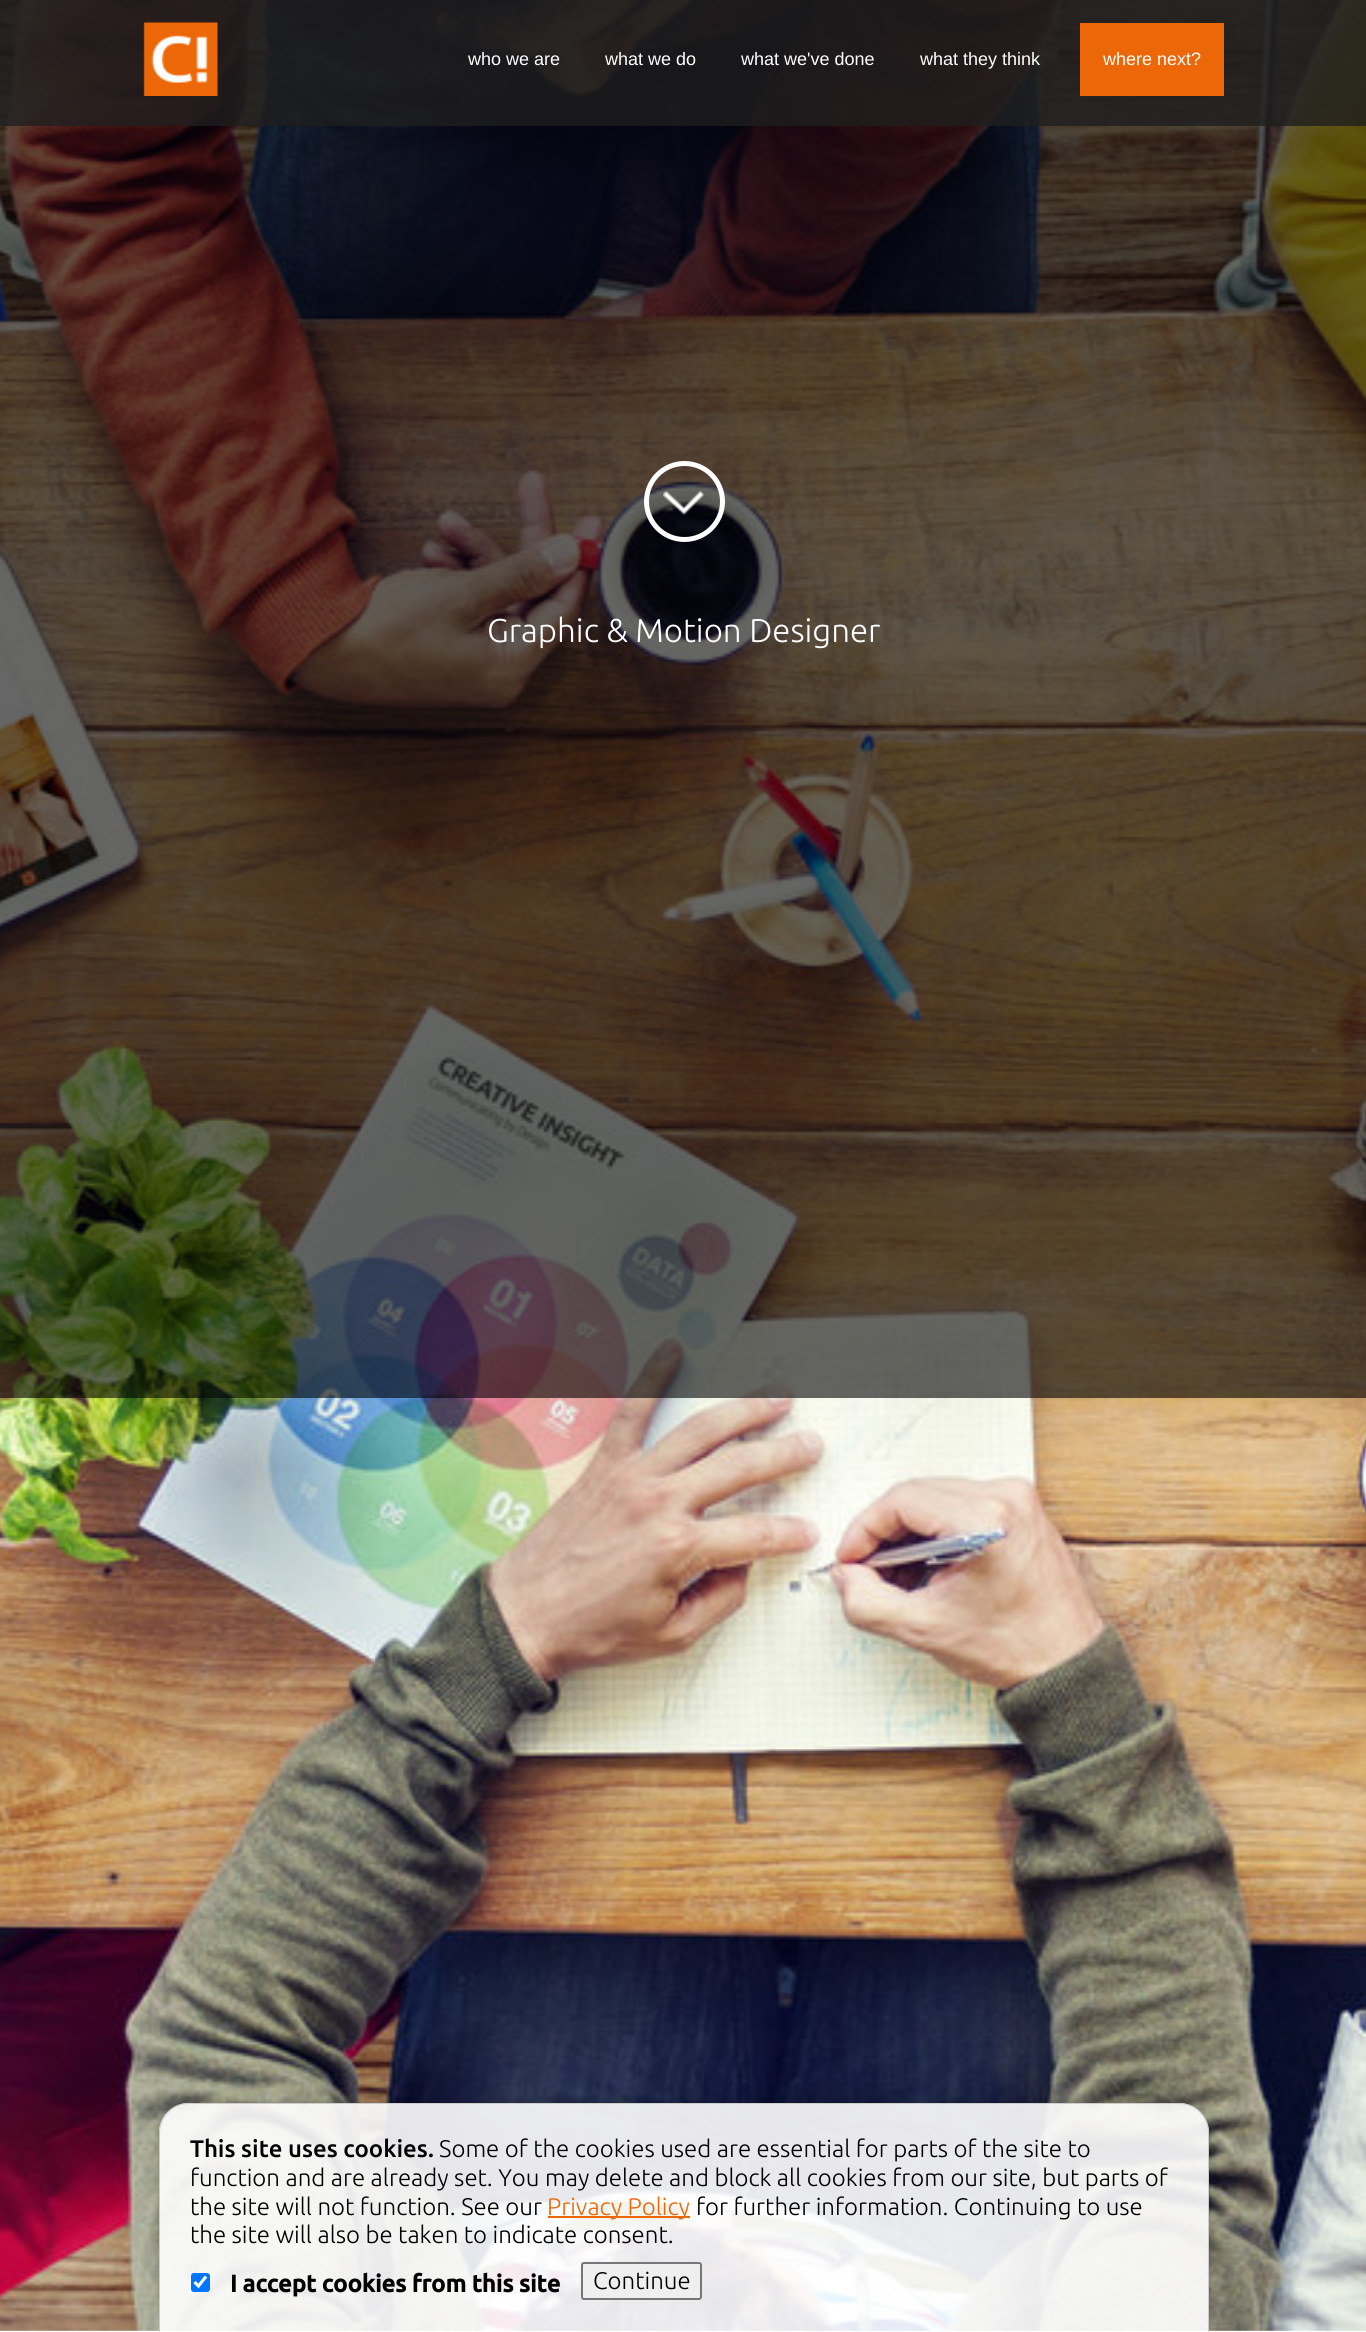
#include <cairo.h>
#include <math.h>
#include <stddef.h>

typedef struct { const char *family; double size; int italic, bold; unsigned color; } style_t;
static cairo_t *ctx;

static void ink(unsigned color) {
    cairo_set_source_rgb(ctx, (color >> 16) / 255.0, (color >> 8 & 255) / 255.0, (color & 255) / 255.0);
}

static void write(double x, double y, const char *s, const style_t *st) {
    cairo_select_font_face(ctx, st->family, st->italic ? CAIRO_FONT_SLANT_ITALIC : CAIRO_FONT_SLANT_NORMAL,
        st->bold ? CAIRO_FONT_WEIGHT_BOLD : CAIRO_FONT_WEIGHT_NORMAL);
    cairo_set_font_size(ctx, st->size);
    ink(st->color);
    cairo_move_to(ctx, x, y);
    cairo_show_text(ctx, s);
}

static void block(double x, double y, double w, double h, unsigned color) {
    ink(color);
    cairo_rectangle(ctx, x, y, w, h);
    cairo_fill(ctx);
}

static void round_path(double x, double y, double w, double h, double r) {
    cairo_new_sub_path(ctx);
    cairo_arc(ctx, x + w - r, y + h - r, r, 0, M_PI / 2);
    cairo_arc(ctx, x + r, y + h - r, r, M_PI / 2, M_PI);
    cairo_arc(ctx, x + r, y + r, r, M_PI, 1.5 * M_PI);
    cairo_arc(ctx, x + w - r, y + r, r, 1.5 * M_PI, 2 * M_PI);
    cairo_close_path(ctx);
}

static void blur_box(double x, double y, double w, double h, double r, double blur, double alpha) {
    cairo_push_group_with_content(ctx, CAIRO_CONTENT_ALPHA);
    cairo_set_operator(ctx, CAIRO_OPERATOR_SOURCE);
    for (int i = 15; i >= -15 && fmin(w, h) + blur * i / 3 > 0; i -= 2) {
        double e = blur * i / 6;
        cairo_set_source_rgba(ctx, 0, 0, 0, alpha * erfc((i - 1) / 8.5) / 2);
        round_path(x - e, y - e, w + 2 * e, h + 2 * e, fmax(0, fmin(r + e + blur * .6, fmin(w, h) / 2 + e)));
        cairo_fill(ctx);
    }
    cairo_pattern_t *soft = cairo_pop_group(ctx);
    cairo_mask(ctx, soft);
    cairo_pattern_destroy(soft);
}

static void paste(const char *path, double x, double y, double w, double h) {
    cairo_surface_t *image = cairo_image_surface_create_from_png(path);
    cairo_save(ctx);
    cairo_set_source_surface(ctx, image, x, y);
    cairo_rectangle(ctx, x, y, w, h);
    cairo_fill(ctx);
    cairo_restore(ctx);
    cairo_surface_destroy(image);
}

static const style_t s1 = {"Liberation Sans", 18, 0, 0, 0xffffff};
static const style_t s2 = {"Ubuntu Light", 33, 0, 0, 0xffffff};
static const style_t s3 = {"Ubuntu Medium", 24, 0, 0, 0x000000};
static const style_t s4 = {"Ubuntu Light", 24, 0, 0, 0x000000};
static const style_t s5 = {"Ubuntu Light", 24, 0, 0, 0xec6707};
static const style_t s6 = {"Ubuntu", 24, 0, 1, 0x000000};

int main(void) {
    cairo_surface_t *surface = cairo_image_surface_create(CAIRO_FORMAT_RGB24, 1366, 2332);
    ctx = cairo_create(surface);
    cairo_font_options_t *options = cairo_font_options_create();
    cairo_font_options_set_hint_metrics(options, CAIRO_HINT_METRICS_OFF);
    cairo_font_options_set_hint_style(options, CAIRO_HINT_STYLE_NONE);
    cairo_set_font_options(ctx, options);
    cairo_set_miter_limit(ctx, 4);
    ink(0xffffff);
    cairo_paint(ctx);
    paste("pic2.png", 0, 0, 1366, 2331);
    cairo_set_source_rgba(ctx, 0, 0, 0, 0.6);
    cairo_rectangle(ctx, 0, 0, 1366, 1398);
    cairo_fill(ctx);
    cairo_set_source_rgba(ctx, 0.122, 0.122, 0.122, 0.8);
    cairo_rectangle(ctx, 0, 0, 1366, 126);
    cairo_fill(ctx);
    paste("pic1.png", 143, 22, 75, 74);
    write(468, 65, "who we are", &s1);
    write(605, 65, "what we do", &s1);
    write(741, 65, "what we've done", &s1);
    write(920, 65, "what they think", &s1);
    block(1080, 23, 144, 73, 0xec6707);
    write(1103, 65, "where next?", &s1);
    cairo_new_path(ctx);
    cairo_arc(ctx, 684.5, 501.5, 38, 0, 2 * M_PI);
    cairo_set_line_width(ctx, 5);
    cairo_stroke(ctx);
    paste("pic3.png", 663, 491, 41, 24);
    write(487, 642, "Graphic & Motion Designer", &s2);
    cairo_save(ctx);
    cairo_set_fill_rule(ctx, CAIRO_FILL_RULE_EVEN_ODD);
    cairo_new_path(ctx);
    cairo_move_to(ctx, 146, 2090);
    cairo_line_to(ctx, 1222, 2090);
    cairo_line_to(ctx, 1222, 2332);
    cairo_line_to(ctx, 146, 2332);
    cairo_close_path(ctx);
    cairo_move_to(ctx, 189, 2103);
    cairo_line_to(ctx, 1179, 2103);
    cairo_curve_to(ctx, 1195.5, 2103, 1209, 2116.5, 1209, 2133);
    cairo_line_to(ctx, 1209, 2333);
    cairo_line_to(ctx, 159, 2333);
    cairo_line_to(ctx, 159, 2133);
    cairo_curve_to(ctx, 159, 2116.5, 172.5, 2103, 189, 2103);
    cairo_close_path(ctx);
    cairo_clip(ctx);
    ink(0x000000);
    blur_box(159, 2103, 1050, 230, 30, 4, 0.25);
    cairo_restore(ctx);
    cairo_set_source_rgba(ctx, 1, 1, 1, 0.9);
    cairo_new_path(ctx);
    cairo_move_to(ctx, 189, 2103);
    cairo_line_to(ctx, 1179, 2103);
    cairo_curve_to(ctx, 1195.5, 2103, 1209, 2116.5, 1209, 2133);
    cairo_line_to(ctx, 1209, 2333);
    cairo_line_to(ctx, 159, 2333);
    cairo_line_to(ctx, 159, 2133);
    cairo_curve_to(ctx, 159, 2116.5, 172.5, 2103, 189, 2103);
    cairo_close_path(ctx);
    cairo_fill(ctx);
    ink(0xcccccc);
    cairo_set_fill_rule(ctx, CAIRO_FILL_RULE_EVEN_ODD);
    cairo_new_path(ctx);
    cairo_move_to(ctx, 189, 2103);
    cairo_line_to(ctx, 1179, 2103);
    cairo_curve_to(ctx, 1196, 2103, 1209, 2116, 1209, 2133);
    cairo_line_to(ctx, 1209, 2332);
    cairo_line_to(ctx, 159, 2332);
    cairo_line_to(ctx, 159, 2133);
    cairo_curve_to(ctx, 159, 2116, 172, 2103, 189, 2103);
    cairo_close_path(ctx);
    cairo_move_to(ctx, 189, 2104);
    cairo_line_to(ctx, 1179, 2104);
    cairo_curve_to(ctx, 1195, 2104, 1208, 2117, 1208, 2133);
    cairo_line_to(ctx, 1208, 2332);
    cairo_line_to(ctx, 160, 2332);
    cairo_line_to(ctx, 160, 2133);
    cairo_curve_to(ctx, 160, 2117, 173, 2104, 189, 2104);
    cairo_close_path(ctx);
    cairo_fill(ctx);
    write(190, 2157, "This site uses cookies.", &s3);
    write(439, 2157, "Some of the cookies used are essential for parts of the site to", &s4);
    write(190, 2186, "function and are already set. You may delete and block all cookies from our site, but parts of", &s4);
    write(190, 2215, "the site will not function. See our", &s4);
    block(548, 2216, 142, 2, 0xec6707);
    write(547, 2215, "Privacy Policy", &s5);
    write(696, 2215, "for further information. Continuing to use", &s4);
    write(190, 2243, "the site will also be taken to indicate consent.", &s4);
    ink(0x0075ff);
    round_path(191, 2273, 19, 19, 3);
    cairo_fill(ctx);
    cairo_new_path(ctx);
    cairo_move_to(ctx, 194.5, 2282);
    cairo_line_to(ctx, 198.5, 2286);
    cairo_line_to(ctx, 206, 2276.5);
    ink(0xffffff);
    cairo_set_line_width(ctx, 3.1);
    cairo_stroke(ctx);
    write(230, 2292, "I accept cookies from this site", &s6);
    ink(0xefefef);
    round_path(582, 2263, 119, 36, 2);
    cairo_fill_preserve(ctx);
    ink(0x767676);
    cairo_set_line_width(ctx, 2);
    cairo_stroke(ctx);
    write(593, 2289, "Continue", &s4);
    cairo_surface_write_to_png(surface, "screenshot.png");
    cairo_font_options_destroy(options);
    cairo_destroy(ctx);
    cairo_surface_destroy(surface);
    return 0;
}
